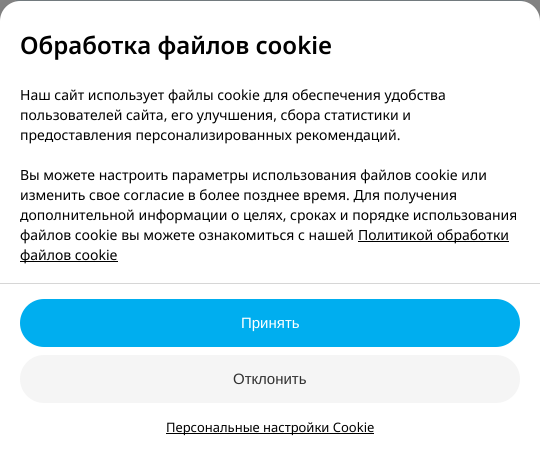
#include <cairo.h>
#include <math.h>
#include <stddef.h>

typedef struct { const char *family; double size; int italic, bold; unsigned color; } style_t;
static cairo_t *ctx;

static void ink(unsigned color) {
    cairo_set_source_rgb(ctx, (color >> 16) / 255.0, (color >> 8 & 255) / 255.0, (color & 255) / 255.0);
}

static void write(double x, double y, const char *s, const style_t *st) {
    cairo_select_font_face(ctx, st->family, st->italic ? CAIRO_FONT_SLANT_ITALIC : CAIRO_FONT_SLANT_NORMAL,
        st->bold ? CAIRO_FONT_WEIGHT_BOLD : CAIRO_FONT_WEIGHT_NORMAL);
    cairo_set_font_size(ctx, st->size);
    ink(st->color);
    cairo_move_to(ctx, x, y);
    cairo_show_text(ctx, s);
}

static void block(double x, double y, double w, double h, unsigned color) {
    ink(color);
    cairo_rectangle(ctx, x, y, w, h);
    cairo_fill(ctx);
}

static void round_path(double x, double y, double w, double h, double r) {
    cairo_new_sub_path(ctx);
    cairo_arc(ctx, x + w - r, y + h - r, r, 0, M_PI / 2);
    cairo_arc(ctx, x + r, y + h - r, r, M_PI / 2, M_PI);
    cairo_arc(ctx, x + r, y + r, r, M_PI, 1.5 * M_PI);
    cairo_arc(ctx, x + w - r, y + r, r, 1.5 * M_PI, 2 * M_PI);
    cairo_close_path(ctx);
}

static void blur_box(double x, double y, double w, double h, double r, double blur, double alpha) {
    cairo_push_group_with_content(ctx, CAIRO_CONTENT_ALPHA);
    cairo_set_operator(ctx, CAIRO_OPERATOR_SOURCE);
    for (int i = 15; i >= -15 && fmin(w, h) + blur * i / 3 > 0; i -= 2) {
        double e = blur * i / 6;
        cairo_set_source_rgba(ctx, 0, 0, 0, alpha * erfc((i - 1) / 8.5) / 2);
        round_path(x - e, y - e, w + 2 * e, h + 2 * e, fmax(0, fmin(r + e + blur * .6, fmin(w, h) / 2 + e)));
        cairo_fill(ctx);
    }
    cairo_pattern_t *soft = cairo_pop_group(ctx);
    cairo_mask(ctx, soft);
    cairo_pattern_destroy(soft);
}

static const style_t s1 = {"Noto Sans SemiBold", 24, 0, 0, 0x000000};
static const style_t s2 = {"Noto Sans", 14, 0, 0, 0x000000};
static const style_t s3 = {"Liberation Sans", 15, 0, 0, 0xffffff};
static const style_t s4 = {"Liberation Sans", 15, 0, 0, 0x313131};
static const style_t s5 = {"Noto Sans", 13, 0, 0, 0x000000};

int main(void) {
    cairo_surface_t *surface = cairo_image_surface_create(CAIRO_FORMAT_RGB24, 540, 451);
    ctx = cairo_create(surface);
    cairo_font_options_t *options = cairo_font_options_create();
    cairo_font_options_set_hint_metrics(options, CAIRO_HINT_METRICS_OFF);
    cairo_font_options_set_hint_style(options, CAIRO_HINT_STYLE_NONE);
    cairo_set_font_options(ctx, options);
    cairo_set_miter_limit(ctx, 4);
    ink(0x858585);
    cairo_paint(ctx);
    block(16, 0, 508, 2, 0x777f83);
    ink(0x000000);
    blur_box(0, 11, 540, 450, 20, 15, 0.16);
    ink(0xffffff);
    cairo_new_path(ctx);
    cairo_move_to(ctx, 20, 1);
    cairo_line_to(ctx, 520, 1);
    cairo_curve_to(ctx, 531, 1, 540, 10, 540, 21);
    cairo_line_to(ctx, 540, 451);
    cairo_line_to(ctx, 0, 451);
    cairo_line_to(ctx, 0, 21);
    cairo_curve_to(ctx, 0, 10, 9, 1, 20, 1);
    cairo_close_path(ctx);
    cairo_fill(ctx);
    write(20, 54, "Обработка файлов cookie", &s1);
    write(20, 100, "Наш сайт использует файлы cookie для обеспечения удобства", &s2);
    write(20, 120, "пользователей сайта, его улучшения, сбора статистики и", &s2);
    write(20, 140, "предоставления персонализированных рекомендаций.", &s2);
    write(20, 180, "Вы можете настроить параметры использования файлов cookie или", &s2);
    write(20, 200, "изменить свое согласие в более позднее время. Для получения", &s2);
    write(20, 220, "дополнительной информации о целях, сроках и порядке использования", &s2);
    write(20, 240, "файлов cookie вы можете ознакомиться с нашей", &s2);
    block(358, 241, 151, 1, 0x000000);
    write(358, 240, "Политикой обработки", &s2);
    block(20, 261, 98, 1, 0x000000);
    write(20, 260, "файлов cookie", &s2);
    block(0, 283, 540, 1, 0xd6d6d6);
    ink(0x00aeef);
    round_path(20, 299, 500, 48, 24);
    cairo_fill(ctx);
    write(241, 328, "Принять", &s3);
    ink(0xf5f5f5);
    round_path(20, 355, 500, 48, 24);
    cairo_fill(ctx);
    write(233, 384, "Отклонить", &s4);
    block(166, 433, 208, 1, 0x000000);
    write(166, 432, "Персональные настройки Cookie", &s5);
    cairo_surface_write_to_png(surface, "screenshot.png");
    cairo_font_options_destroy(options);
    cairo_destroy(ctx);
    cairo_surface_destroy(surface);
    return 0;
}
